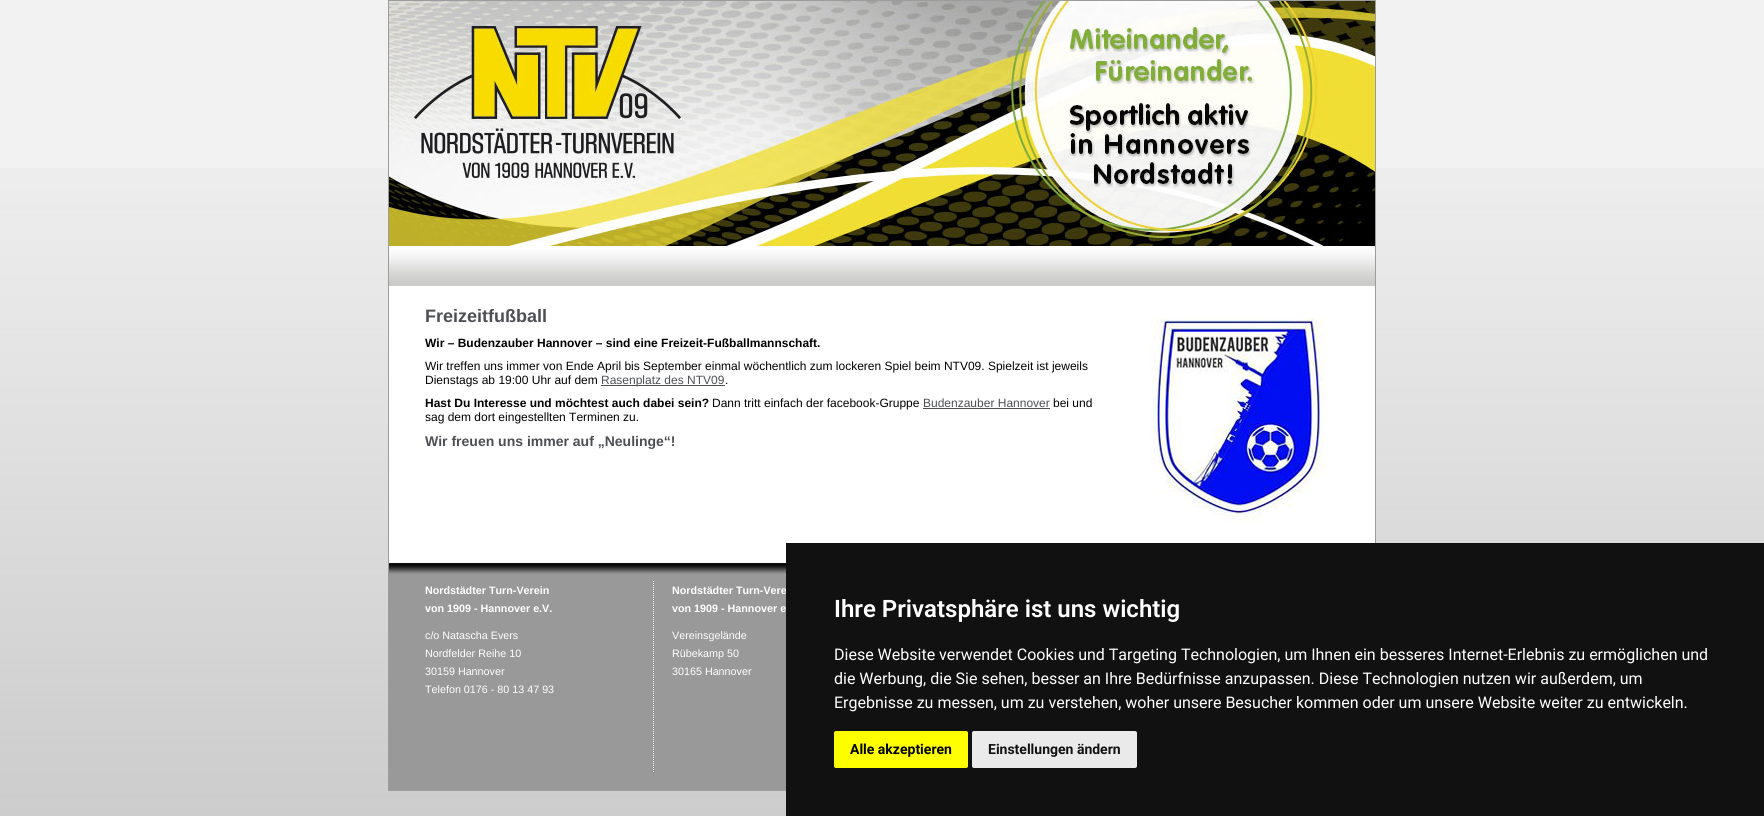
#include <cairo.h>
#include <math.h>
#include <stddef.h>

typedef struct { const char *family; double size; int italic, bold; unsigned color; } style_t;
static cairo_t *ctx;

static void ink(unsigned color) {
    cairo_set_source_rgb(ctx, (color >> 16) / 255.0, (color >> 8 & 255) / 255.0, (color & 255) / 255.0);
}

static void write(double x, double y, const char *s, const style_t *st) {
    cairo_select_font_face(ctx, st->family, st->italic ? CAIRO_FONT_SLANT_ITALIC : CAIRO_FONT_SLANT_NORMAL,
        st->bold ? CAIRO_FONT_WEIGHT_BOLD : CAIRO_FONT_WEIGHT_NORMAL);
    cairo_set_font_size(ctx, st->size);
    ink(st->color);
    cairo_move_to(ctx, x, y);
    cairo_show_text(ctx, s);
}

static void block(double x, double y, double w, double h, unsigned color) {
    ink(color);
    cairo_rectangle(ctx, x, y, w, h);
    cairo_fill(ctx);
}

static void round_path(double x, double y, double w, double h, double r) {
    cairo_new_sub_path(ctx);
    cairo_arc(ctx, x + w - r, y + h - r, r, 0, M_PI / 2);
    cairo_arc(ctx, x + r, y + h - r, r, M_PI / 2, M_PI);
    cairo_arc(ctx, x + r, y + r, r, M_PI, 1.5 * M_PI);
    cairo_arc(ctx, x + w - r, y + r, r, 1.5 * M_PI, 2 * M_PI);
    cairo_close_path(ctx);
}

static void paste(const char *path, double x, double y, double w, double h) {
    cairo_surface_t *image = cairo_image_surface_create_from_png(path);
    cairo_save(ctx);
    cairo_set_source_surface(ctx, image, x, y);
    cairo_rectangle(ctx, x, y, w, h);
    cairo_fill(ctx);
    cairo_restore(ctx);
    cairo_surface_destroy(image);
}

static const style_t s1 = {"Liberation Sans", 18, 0, 1, 0x4d4f53};
static const style_t s2 = {"Liberation Sans", 12, 0, 1, 0x000000};
static const style_t s3 = {"Liberation Sans", 12, 0, 0, 0x000000};
static const style_t s4 = {"Liberation Sans", 12, 0, 0, 0x4d4f53};
static const style_t s5 = {"Liberation Sans", 14, 0, 1, 0x4d4f53};
static const style_t s6 = {"Liberation Sans", 10.75, 0, 1, 0xffffff};
static const style_t s7 = {"Liberation Sans", 10.75, 0, 0, 0xffffff};
static const style_t s8 = {"Roboto SemiBold", 24, 0, 0, 0xffffff};
static const style_t s9 = {"Roboto", 16, 0, 0, 0xffffff};
static const style_t s10 = {"Roboto", 14, 0, 1, 0x000000};
static const style_t s11 = {"Roboto", 14, 0, 1, 0x111111};

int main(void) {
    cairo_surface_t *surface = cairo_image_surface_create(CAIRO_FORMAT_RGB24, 1764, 816);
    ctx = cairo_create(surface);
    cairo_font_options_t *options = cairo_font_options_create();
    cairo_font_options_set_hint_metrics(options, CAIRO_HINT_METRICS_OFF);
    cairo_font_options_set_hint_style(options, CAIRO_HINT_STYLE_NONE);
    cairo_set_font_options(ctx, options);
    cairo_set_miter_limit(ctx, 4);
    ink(0xf2f2f2);
    cairo_paint(ctx);
    paste("pic1.png", 0, 168, 1764, 648);
    cairo_rectangle(ctx, 388.5, 0.5, 987, 790);
    ink(0x9c9c9c);
    cairo_set_line_width(ctx, 1);
    cairo_stroke(ctx);
    paste("pic2.png", 389, 1, 986, 245);
    paste("pic3.png", 389, 246, 986, 42);
    block(389, 288, 986, 275, 0xffffff);
    write(425, 322, "Freizeitfußball", &s1);
    write(425, 347, "Wir – Budenzauber Hannover – sind eine Freizeit-Fußballmannschaft.", &s2);
    write(425, 370, "Wir treffen uns immer von Ende April bis September einmal wöchentlich zum lockeren Spiel beim NTV09. Spielzeit ist jeweils", &s3);
    write(425, 384, "Dienstags ab 19:00 Uhr auf dem", &s3);
    block(601, 385, 124, 1, 0x4d4f53);
    write(601, 384, "Rasenplatz des NTV09", &s4);
    write(725, 384, ".", &s3);
    write(425, 407, "Hast Du Interesse und möchtest auch dabei sein?", &s2);
    write(712, 407, "Dann tritt einfach der facebook-Gruppe", &s3);
    write(923, 407, "Budenzauber Hannover", &s4);
    block(923, 408, 127, 1, 0x4d4f53);
    write(1053, 407, "bei und", &s3);
    write(425, 421, "sag dem dort eingestellten Terminen zu.", &s3);
    write(425, 446, "Wir freuen uns immer auf „Neulinge“!", &s5);
    paste("pic4.png", 1150, 317, 175, 207);
    block(389, 574, 397, 216, 0x999999);
    paste("pic5.png", 389, 563, 397, 11);
    write(425, 594, "Nordstädter Turn-Verein", &s6);
    write(425, 612, "von 1909 - Hannover e.V.", &s6);
    write(425, 639, "c/o Natascha Evers", &s7);
    write(425, 657, "Nordfelder Reihe 10", &s7);
    write(425, 675, "30159 Hannover", &s7);
    write(425, 693, "Telefon 0176 - 80 13 47 93", &s7);
    cairo_new_path(ctx);
    cairo_move_to(ctx, 653.5, 581);
    cairo_line_to(ctx, 653.5, 772);
    cairo_set_dash(ctx, (double[]){1, 1}, 2, 0);
    cairo_stroke(ctx);
    write(672, 594, "Nordstädter Turn-Vere", &s6);
    write(672, 612, "von 1909 - Hannover e", &s6);
    write(672, 639, "Vereinsgelände", &s7);
    write(672, 657, "Rübekamp 50", &s7);
    write(672, 675, "30165 Hannover", &s7);
    block(786, 543, 978, 273, 0x111111);
    write(834, 617, "Ihre Privatsphäre ist uns wichtig", &s8);
    write(834, 660, "Diese Website verwendet Cookies und Targeting Technologien, um Ihnen ein besseres Internet-Erlebnis zu ermöglichen und", &s9);
    write(834, 684, "die Werbung, die Sie sehen, besser an Ihre Bedürfnisse anzupassen. Diese Technologien nutzen wir außerdem, um", &s9);
    write(834, 708, "Ergebnisse zu messen, um zu verstehen, woher unsere Besucher kommen oder um unsere Website weiter zu entwickeln.", &s9);
    ink(0xffff00);
    round_path(834, 731, 134, 37, 2);
    cairo_fill(ctx);
    write(850, 754, "Alle akzeptieren", &s10);
    ink(0xeaeaea);
    round_path(972, 731, 165, 37, 2);
    cairo_fill(ctx);
    write(988, 754, "Einstellungen ändern", &s11);
    cairo_surface_write_to_png(surface, "screenshot.png");
    cairo_font_options_destroy(options);
    cairo_destroy(ctx);
    cairo_surface_destroy(surface);
    return 0;
}
